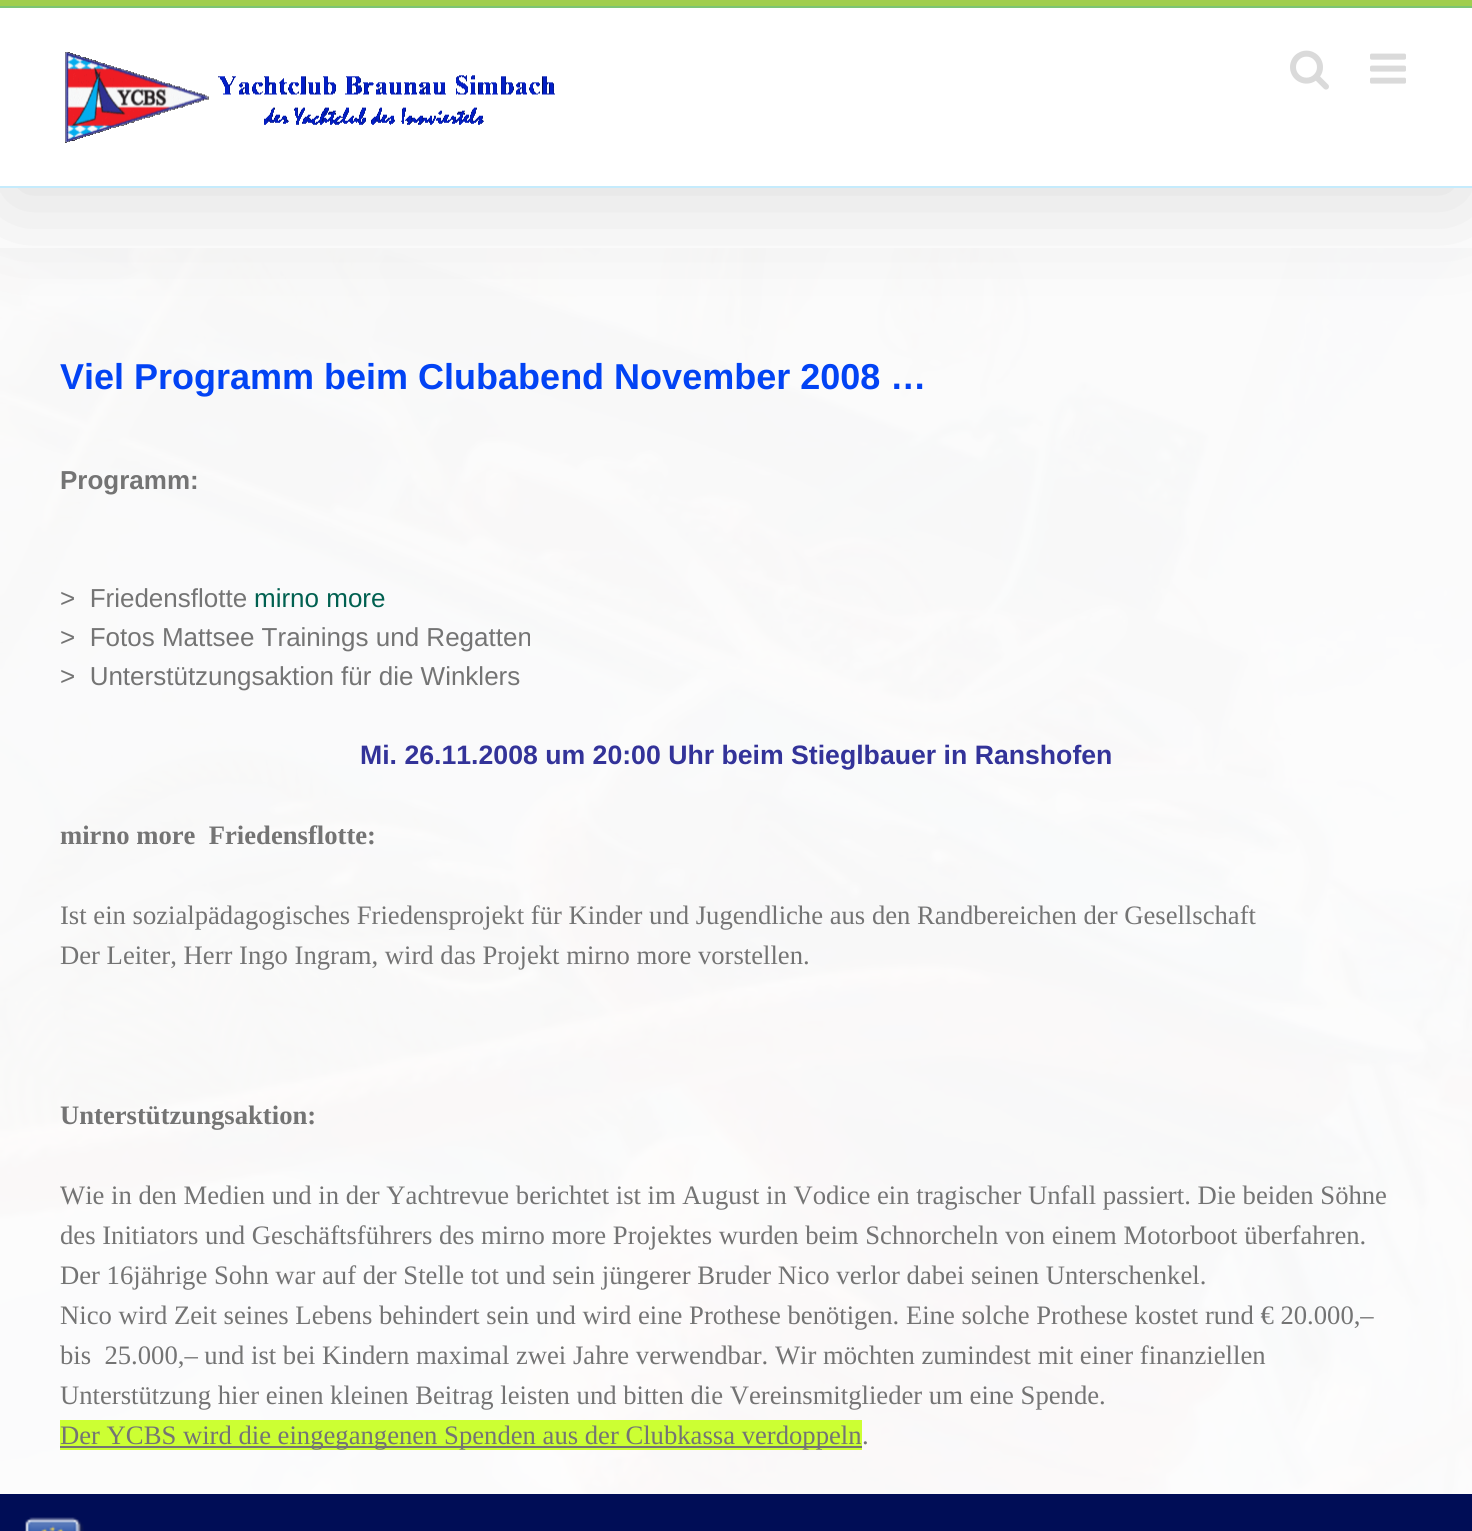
#include <cairo.h>
#include <math.h>
#include <stddef.h>

typedef struct { const char *family; double size; int italic, bold; unsigned color; } style_t;
static cairo_t *ctx;

static void ink(unsigned color) {
    cairo_set_source_rgb(ctx, (color >> 16) / 255.0, (color >> 8 & 255) / 255.0, (color & 255) / 255.0);
}

static void write(double x, double y, const char *s, const style_t *st) {
    cairo_select_font_face(ctx, st->family, st->italic ? CAIRO_FONT_SLANT_ITALIC : CAIRO_FONT_SLANT_NORMAL,
        st->bold ? CAIRO_FONT_WEIGHT_BOLD : CAIRO_FONT_WEIGHT_NORMAL);
    cairo_set_font_size(ctx, st->size);
    ink(st->color);
    cairo_move_to(ctx, x, y);
    cairo_show_text(ctx, s);
}

static void block(double x, double y, double w, double h, unsigned color) {
    ink(color);
    cairo_rectangle(ctx, x, y, w, h);
    cairo_fill(ctx);
}

static void round_path(double x, double y, double w, double h, double r) {
    cairo_new_sub_path(ctx);
    cairo_arc(ctx, x + w - r, y + h - r, r, 0, M_PI / 2);
    cairo_arc(ctx, x + r, y + h - r, r, M_PI / 2, M_PI);
    cairo_arc(ctx, x + r, y + r, r, M_PI, 1.5 * M_PI);
    cairo_arc(ctx, x + w - r, y + r, r, 1.5 * M_PI, 2 * M_PI);
    cairo_close_path(ctx);
}

static void blur_box(double x, double y, double w, double h, double r, double blur, double alpha) {
    cairo_push_group_with_content(ctx, CAIRO_CONTENT_ALPHA);
    cairo_set_operator(ctx, CAIRO_OPERATOR_SOURCE);
    for (int i = 15; i >= -15 && fmin(w, h) + blur * i / 3 > 0; i -= 2) {
        double e = blur * i / 6;
        cairo_set_source_rgba(ctx, 0, 0, 0, alpha * erfc((i - 1) / 8.5) / 2);
        round_path(x - e, y - e, w + 2 * e, h + 2 * e, fmax(0, fmin(r + e + blur * .6, fmin(w, h) / 2 + e)));
        cairo_fill(ctx);
    }
    cairo_pattern_t *soft = cairo_pop_group(ctx);
    cairo_mask(ctx, soft);
    cairo_pattern_destroy(soft);
}

static void paste(const char *path, double x, double y, double w, double h) {
    cairo_surface_t *image = cairo_image_surface_create_from_png(path);
    cairo_save(ctx);
    cairo_set_source_surface(ctx, image, x, y);
    cairo_rectangle(ctx, x, y, w, h);
    cairo_fill(ctx);
    cairo_restore(ctx);
    cairo_surface_destroy(image);
}

static const style_t s1 = {"Liberation Sans", 36, 0, 1, 0x0243f4};
static const style_t s2 = {"Liberation Sans", 26, 0, 1, 0x747474};
static const style_t s3 = {"Liberation Sans", 26, 0, 0, 0x747474};
static const style_t s4 = {"Liberation Sans", 26, 0, 0, 0x006050};
static const style_t s5 = {"Liberation Sans", 26.65, 0, 1, 0x333399};
static const style_t s6 = {"Liberation Serif", 26.65, 0, 1, 0x747474};
static const style_t s7 = {"Liberation Serif", 26.65, 0, 0, 0x747474};

int main(void) {
    cairo_surface_t *surface = cairo_image_surface_create(CAIRO_FORMAT_RGB24, 1472, 1531);
    ctx = cairo_create(surface);
    cairo_font_options_t *options = cairo_font_options_create();
    cairo_font_options_set_hint_metrics(options, CAIRO_HINT_METRICS_OFF);
    cairo_font_options_set_hint_style(options, CAIRO_HINT_STYLE_NONE);
    cairo_set_font_options(ctx, options);
    cairo_set_miter_limit(ctx, 4);
    ink(0xffffff);
    cairo_paint(ctx);
    paste("pic1.png", 0, 248, 1472, 1246);
    cairo_set_source_rgba(ctx, 1, 1, 1, 0.97);
    cairo_rectangle(ctx, 0, 248, 1472, 1246);
    cairo_fill(ctx);
    ink(0x000000);
    blur_box(4, 24, 1464, 180, 0, 50, 0.14);
    block(0, 0, 1472, 6, 0xa0ce4e);
    block(0, 6, 1472, 2, 0x7cc574);
    block(0, 8, 1472, 178, 0xffffff);
    block(0, 186, 1472, 2, 0xc5ebfc);
    paste("pic2.png", 65, 52, 490, 91);
    paste("pic3.png", 1290, 50, 39, 40);
    paste("pic4.png", 1370, 53, 36, 31);
    write(60, 389, "Viel Programm beim Clubabend November 2008 …", &s1);
    write(60, 489, "Programm:", &s2);
    write(60, 607, ">  Friedensflotte", &s3);
    write(254, 607, "mirno more", &s4);
    write(60, 646, ">  Fotos Mattsee Trainings und Regatten", &s3);
    write(60, 685, ">  Unterstützungsaktion für die Winklers", &s3);
    write(360, 764, "Mi. 26.11.2008 um 20:00 Uhr beim Stieglbauer in Ranshofen", &s5);
    write(60, 844, "mirno more  Friedensflotte:", &s6);
    write(60, 924, "Ist ein sozialpädagogisches Friedensprojekt für Kinder und Jugendliche aus den Randbereichen der Gesellschaft", &s7);
    write(60, 964, "Der Leiter, Herr Ingo Ingram, wird das Projekt mirno more vorstellen.", &s7);
    write(60, 1124, "Unterstützungsaktion:", &s6);
    write(60, 1204, "Wie in den Medien und in der Yachtrevue berichtet ist im August in Vodice ein tragischer Unfall passiert. Die beiden Söhne", &s7);
    write(60, 1244, "des Initiators und Geschäftsführers des mirno more Projektes wurden beim Schnorcheln von einem Motorboot überfahren.", &s7);
    write(60, 1284, "Der 16jährige Sohn war auf der Stelle tot und sein jüngerer Bruder Nico verlor dabei seinen Unterschenkel.", &s7);
    write(60, 1324, "Nico wird Zeit seines Lebens behindert sein und wird eine Prothese benötigen. Eine solche Prothese kostet rund € 20.000,–", &s7);
    write(60, 1364, "bis  25.000,– und ist bei Kindern maximal zwei Jahre verwendbar. Wir möchten zumindest mit einer finanziellen", &s7);
    write(60, 1404, "Unterstützung hier einen kleinen Beitrag leisten und bitten die Vereinsmitglieder um eine Spende.", &s7);
    block(60, 1420, 802, 30, 0xccff33);
    block(60, 1446, 802, 2, 0x747474);
    write(60, 1444, "Der YCBS wird die eingegangenen Spenden aus der Clubkassa verdoppeln", &s7);
    write(862, 1444, ".", &s7);
    block(0, 1494, 1472, 37, 0x000d56);
    paste("pic5.png", 25, 1517, 59, 14);
    cairo_surface_write_to_png(surface, "screenshot.png");
    cairo_font_options_destroy(options);
    cairo_destroy(ctx);
    cairo_surface_destroy(surface);
    return 0;
}
